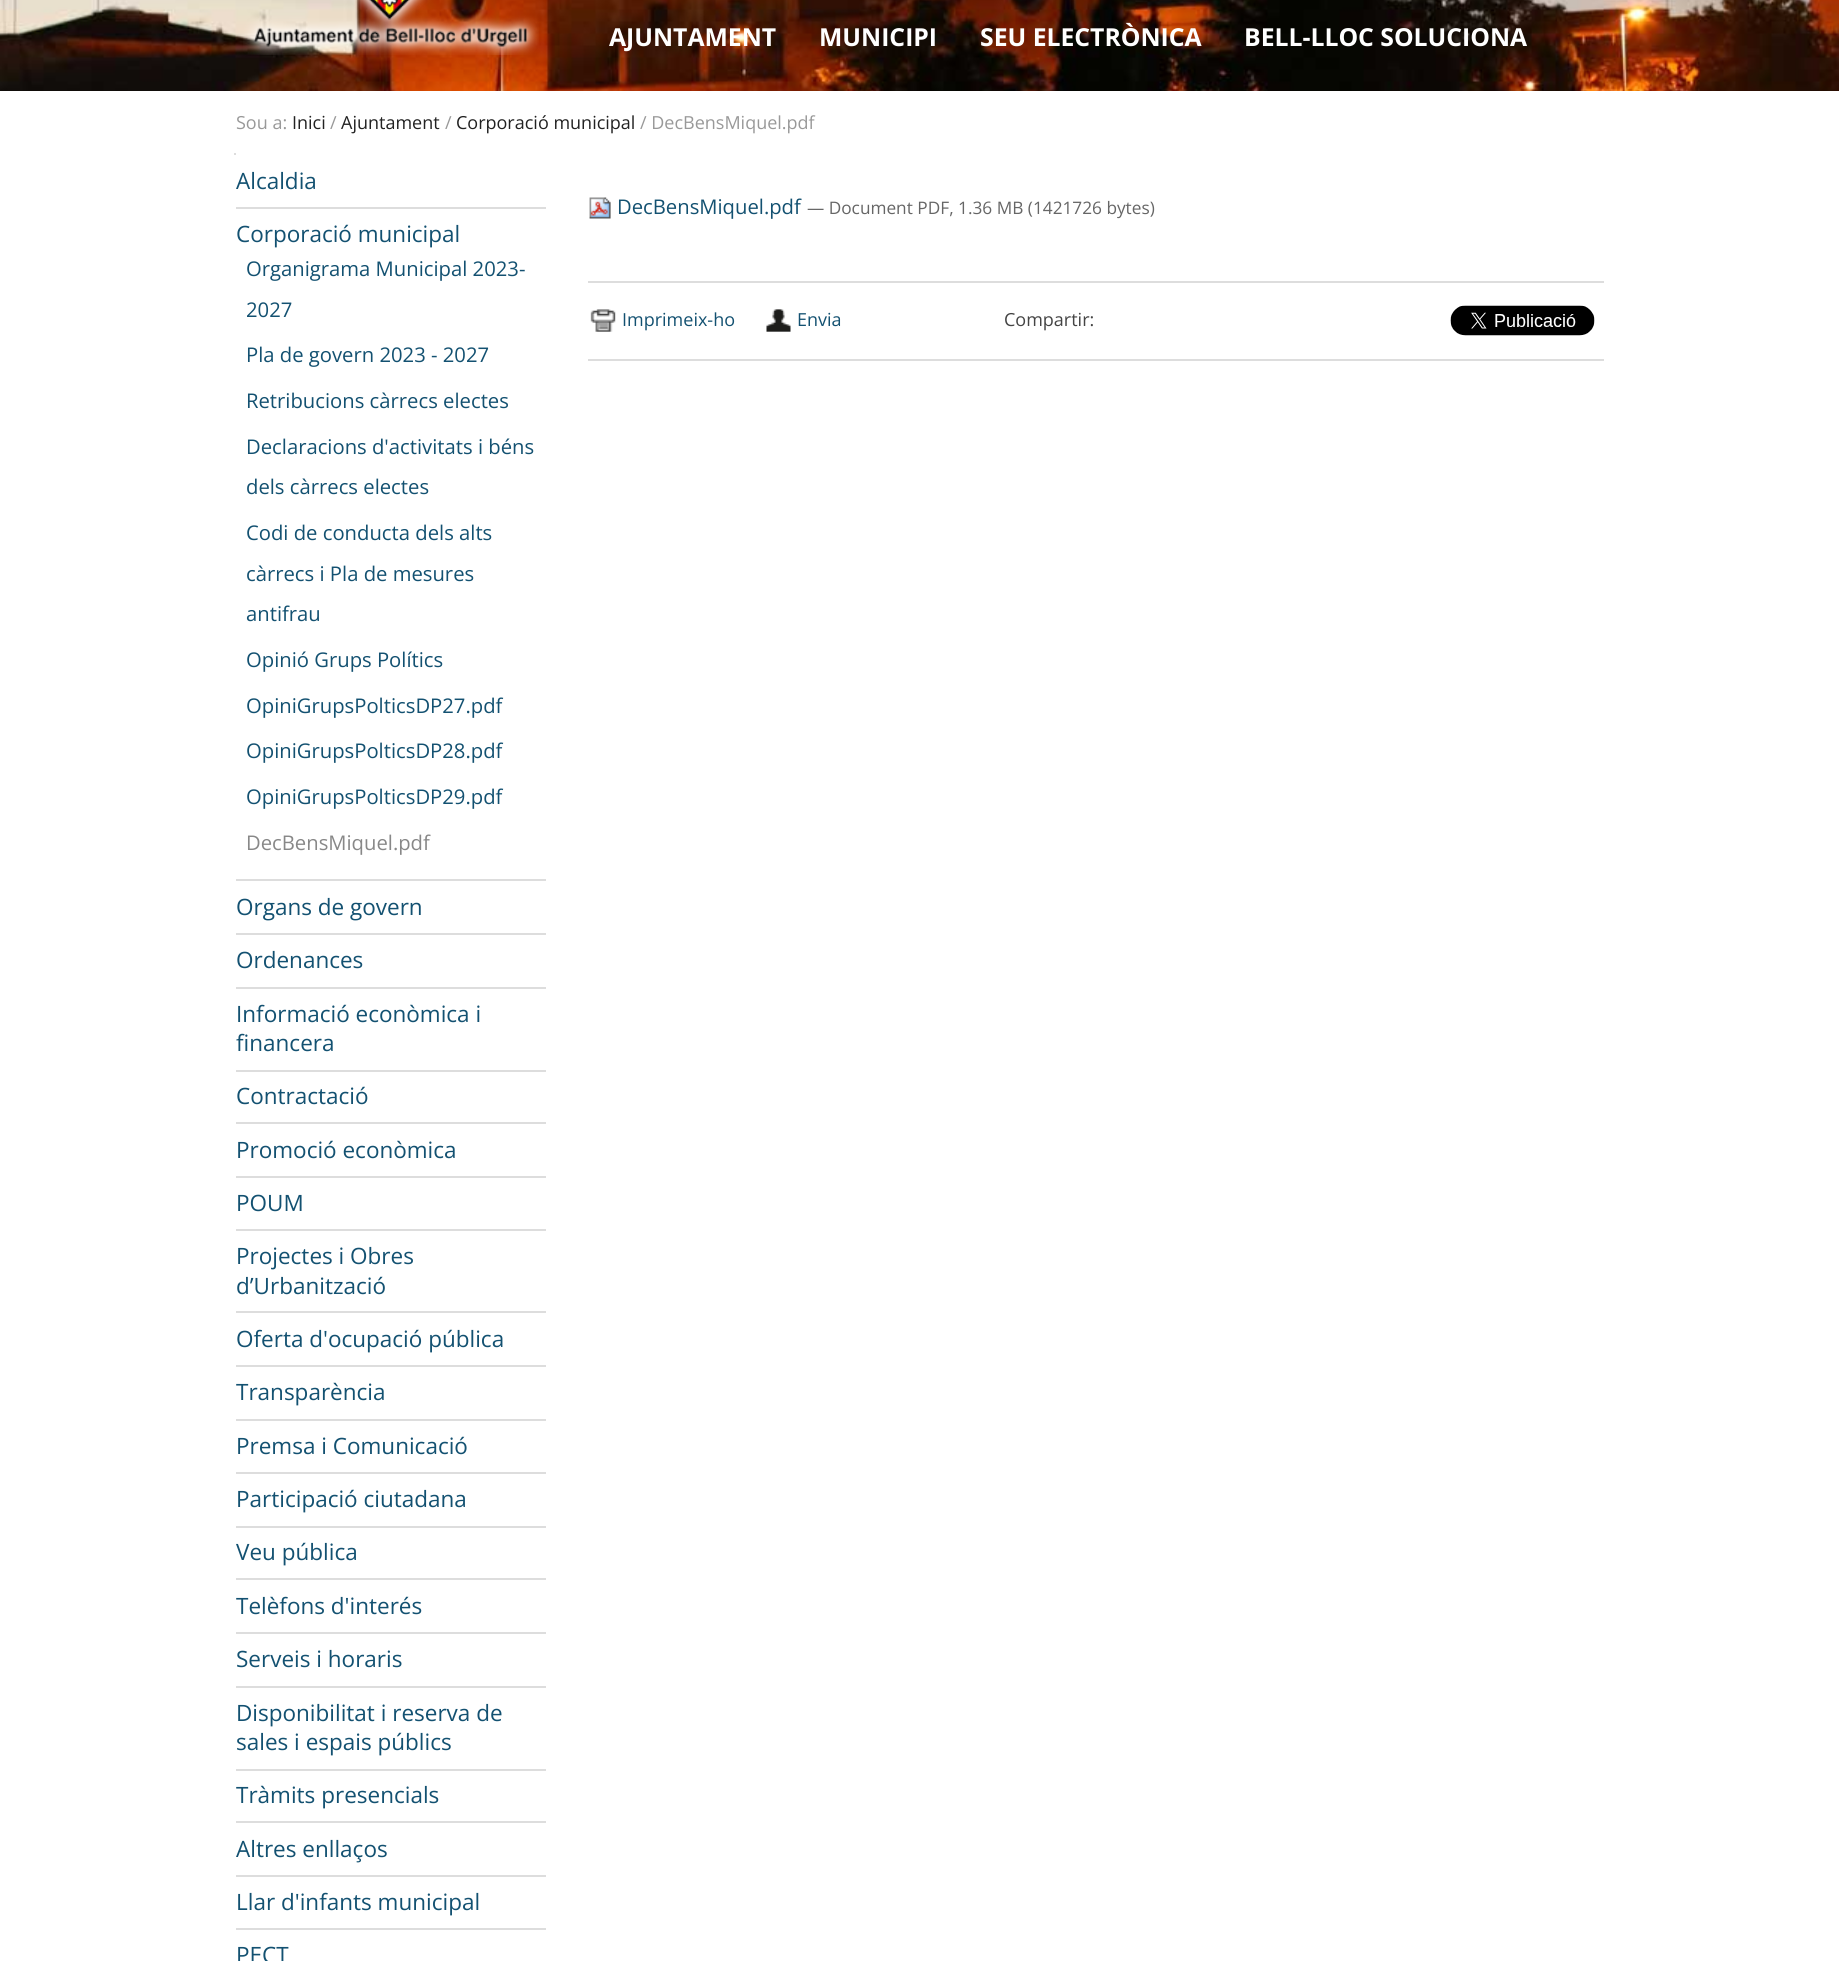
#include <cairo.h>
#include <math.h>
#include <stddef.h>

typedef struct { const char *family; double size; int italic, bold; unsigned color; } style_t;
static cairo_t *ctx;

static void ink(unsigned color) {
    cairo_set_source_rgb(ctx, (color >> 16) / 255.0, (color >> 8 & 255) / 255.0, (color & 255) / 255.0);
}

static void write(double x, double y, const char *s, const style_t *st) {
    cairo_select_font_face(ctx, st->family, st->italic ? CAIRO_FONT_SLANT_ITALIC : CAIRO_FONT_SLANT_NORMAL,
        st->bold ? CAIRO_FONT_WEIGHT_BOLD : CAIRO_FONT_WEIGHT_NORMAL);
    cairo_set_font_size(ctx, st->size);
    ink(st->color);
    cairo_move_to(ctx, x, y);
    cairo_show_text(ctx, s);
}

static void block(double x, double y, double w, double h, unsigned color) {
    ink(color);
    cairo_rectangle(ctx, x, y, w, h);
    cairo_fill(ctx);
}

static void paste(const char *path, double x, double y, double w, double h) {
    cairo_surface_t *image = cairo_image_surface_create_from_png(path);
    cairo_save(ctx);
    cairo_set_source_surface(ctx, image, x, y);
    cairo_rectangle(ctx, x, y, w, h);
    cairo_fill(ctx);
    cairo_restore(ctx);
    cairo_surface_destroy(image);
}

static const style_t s1 = {"Open Sans", 24.75, 0, 1, 0xffffff};
static const style_t s2 = {"Open Sans", 18, 0, 0, 0x999999};
static const style_t s3 = {"Open Sans", 18, 0, 0, 0x222222};
static const style_t s4 = {"Open Sans", 22.5, 0, 0, 0x135171};
static const style_t s5 = {"Open Sans", 20.25, 0, 0, 0x135171};
static const style_t s6 = {"Open Sans", 20.25, 0, 0, 0x888888};
static const style_t s7 = {"Open Sans", 17.25, 0, 0, 0x666666};
static const style_t s8 = {"Open Sans", 18, 0, 0, 0x135171};
static const style_t s9 = {"Open Sans", 18, 0, 0, 0x444444};

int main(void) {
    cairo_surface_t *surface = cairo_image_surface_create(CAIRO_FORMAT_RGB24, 1839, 1961);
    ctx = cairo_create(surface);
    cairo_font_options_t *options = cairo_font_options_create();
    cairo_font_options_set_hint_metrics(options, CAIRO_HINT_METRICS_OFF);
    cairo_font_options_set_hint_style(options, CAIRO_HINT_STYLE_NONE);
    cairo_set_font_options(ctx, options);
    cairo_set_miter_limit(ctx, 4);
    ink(0xffffff);
    cairo_paint(ctx);
    paste("pic1.png", 0, 0, 1839, 91);
    paste("pic2.png", 243, 0, 296, 55);
    write(609, 46, "AJUNTAMENT", &s1);
    write(819, 46, "MUNICIPI", &s1);
    write(980, 46, "SEU ELECTRÒNICA", &s1);
    write(1244, 46, "BELL-LLOC SOLUCIONA", &s1);
    write(236, 129, "Sou a:", &s2);
    write(292, 129, "Inici", &s3);
    write(330, 129, "/", &s2);
    write(341, 129, "Ajuntament", &s3);
    write(445, 129, "/", &s2);
    write(456, 129, "Corporació municipal", &s3);
    write(640, 129, "/ DecBensMiquel.pdf", &s2);
    block(234, 153, 2, 2, 0xdddddd);
    block(236, 207, 310, 2, 0xdddddd);
    write(236, 189, "Alcaldia", &s4);
    block(236, 879, 310, 2, 0xdddddd);
    write(236, 242, "Corporació municipal", &s4);
    write(246, 276, "Organigrama Municipal 2023-", &s5);
    write(246, 317, "2027", &s5);
    write(246, 362, "Pla de govern 2023 - 2027", &s5);
    write(246, 408, "Retribucions càrrecs electes", &s5);
    write(246, 454, "Declaracions d'activitats i béns", &s5);
    write(246, 494, "dels càrrecs electes", &s5);
    write(246, 540, "Codi de conducta dels alts", &s5);
    write(246, 581, "càrrecs i Pla de mesures", &s5);
    write(246, 621, "antifrau", &s5);
    write(246, 667, "Opinió Grups Polítics", &s5);
    write(246, 713, "OpiniGrupsPolticsDP27.pdf", &s5);
    write(246, 758, "OpiniGrupsPolticsDP28.pdf", &s5);
    write(246, 804, "OpiniGrupsPolticsDP29.pdf", &s5);
    write(246, 850, "DecBensMiquel.pdf", &s6);
    block(236, 933, 310, 2, 0xdddddd);
    write(236, 915, "Organs de govern", &s4);
    block(236, 987, 310, 2, 0xdddddd);
    write(236, 968, "Ordenances", &s4);
    block(236, 1070, 310, 2, 0xdddddd);
    write(236, 1022, "Informació econòmica i", &s4);
    write(236, 1051, "financera", &s4);
    block(236, 1122, 310, 2, 0xdddddd);
    write(236, 1104, "Contractació", &s4);
    block(236, 1176, 310, 2, 0xdddddd);
    write(236, 1158, "Promoció econòmica", &s4);
    block(236, 1229, 310, 2, 0xdddddd);
    write(236, 1211, "POUM", &s4);
    block(236, 1311, 310, 2, 0xdddddd);
    write(236, 1264, "Projectes i Obres", &s4);
    write(236, 1294, "d’Urbanització", &s4);
    block(236, 1365, 310, 2, 0xdddddd);
    write(236, 1347, "Oferta d'ocupació pública", &s4);
    block(236, 1419, 310, 2, 0xdddddd);
    write(236, 1400, "Transparència", &s4);
    block(236, 1472, 310, 2, 0xdddddd);
    write(236, 1454, "Premsa i Comunicació", &s4);
    block(236, 1526, 310, 2, 0xdddddd);
    write(236, 1507, "Participació ciutadana", &s4);
    block(236, 1578, 310, 2, 0xdddddd);
    write(236, 1560, "Veu pública", &s4);
    block(236, 1632, 310, 2, 0xdddddd);
    write(236, 1614, "Telèfons d'interés", &s4);
    block(236, 1686, 310, 2, 0xdddddd);
    write(236, 1667, "Serveis i horaris", &s4);
    block(236, 1769, 310, 2, 0xdddddd);
    write(236, 1721, "Disponibilitat i reserva de", &s4);
    write(236, 1750, "sales i espais públics", &s4);
    block(236, 1821, 310, 2, 0xdddddd);
    write(236, 1803, "Tràmits presencials", &s4);
    block(236, 1875, 310, 2, 0xdddddd);
    write(236, 1857, "Altres enllaços", &s4);
    block(236, 1928, 310, 2, 0xdddddd);
    write(236, 1910, "Llar d'infants municipal", &s4);
    write(236, 1963, "PECT", &s4);
    paste("pic3.png", 589, 197, 22, 22);
    write(617, 214, "DecBensMiquel.pdf", &s5);
    write(807, 214, "— Document PDF, 1.36 MB (1421726 bytes)", &s7);
    block(588, 281, 1016, 2, 0xdddddd);
    block(588, 359, 1016, 2, 0xdddddd);
    paste("pic4.png", 590, 309, 26, 23);
    write(622, 326, "Imprimeix-ho", &s8);
    paste("pic5.png", 766, 309, 25, 23);
    write(797, 326, "Envia", &s8);
    write(1004, 326, "Compartir:", &s9);
    paste("pic6.png", 1450, 305, 145, 31);
    cairo_surface_write_to_png(surface, "screenshot.png");
    cairo_font_options_destroy(options);
    cairo_destroy(ctx);
    cairo_surface_destroy(surface);
    return 0;
}
